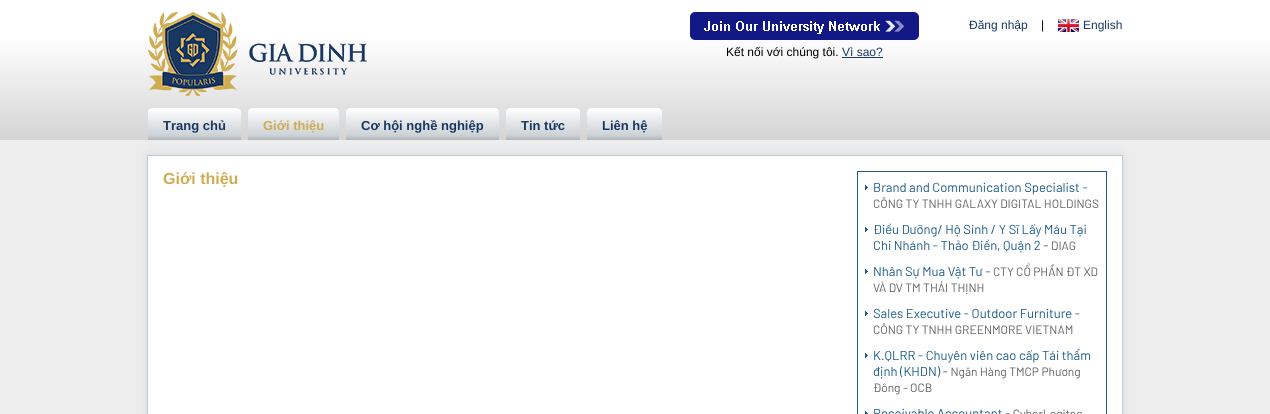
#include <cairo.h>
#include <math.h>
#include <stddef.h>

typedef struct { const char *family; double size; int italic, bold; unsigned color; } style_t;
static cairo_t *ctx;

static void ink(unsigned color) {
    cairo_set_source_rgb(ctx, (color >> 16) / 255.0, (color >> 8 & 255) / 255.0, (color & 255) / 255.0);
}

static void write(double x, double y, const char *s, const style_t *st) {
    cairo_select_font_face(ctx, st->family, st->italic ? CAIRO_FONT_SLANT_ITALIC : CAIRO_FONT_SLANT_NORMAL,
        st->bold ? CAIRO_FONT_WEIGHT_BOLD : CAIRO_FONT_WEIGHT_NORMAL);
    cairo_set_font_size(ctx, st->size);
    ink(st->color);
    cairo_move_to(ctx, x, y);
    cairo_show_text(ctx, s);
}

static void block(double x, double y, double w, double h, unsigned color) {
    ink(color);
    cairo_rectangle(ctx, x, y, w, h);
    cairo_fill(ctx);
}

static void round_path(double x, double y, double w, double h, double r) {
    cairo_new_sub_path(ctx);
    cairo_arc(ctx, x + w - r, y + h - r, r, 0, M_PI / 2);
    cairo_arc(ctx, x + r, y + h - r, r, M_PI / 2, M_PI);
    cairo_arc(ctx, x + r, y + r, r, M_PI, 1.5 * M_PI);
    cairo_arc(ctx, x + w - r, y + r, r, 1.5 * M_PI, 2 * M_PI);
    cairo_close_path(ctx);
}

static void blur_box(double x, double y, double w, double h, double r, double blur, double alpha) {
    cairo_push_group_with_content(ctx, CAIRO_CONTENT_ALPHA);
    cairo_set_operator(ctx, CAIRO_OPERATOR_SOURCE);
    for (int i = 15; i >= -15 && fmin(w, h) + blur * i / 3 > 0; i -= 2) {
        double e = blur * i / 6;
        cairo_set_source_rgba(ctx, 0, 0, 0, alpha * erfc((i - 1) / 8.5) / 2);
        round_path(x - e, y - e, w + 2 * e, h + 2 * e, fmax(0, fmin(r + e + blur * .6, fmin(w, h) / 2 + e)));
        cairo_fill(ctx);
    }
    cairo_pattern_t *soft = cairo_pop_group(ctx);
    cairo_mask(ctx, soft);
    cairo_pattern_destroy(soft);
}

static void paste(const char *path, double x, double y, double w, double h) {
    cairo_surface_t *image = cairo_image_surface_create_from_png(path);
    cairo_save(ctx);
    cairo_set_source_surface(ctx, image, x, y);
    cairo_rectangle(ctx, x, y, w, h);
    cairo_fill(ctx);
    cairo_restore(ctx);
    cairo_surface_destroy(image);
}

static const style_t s1 = {"Liberation Sans", 12, 0, 0, 0x183761};
static const style_t s2 = {"Liberation Sans", 12, 0, 0, 0x000000};
static const style_t s3 = {"Liberation Sans", 13, 0, 1, 0x183761};
static const style_t s4 = {"Liberation Sans", 13, 0, 1, 0xcfac54};
static const style_t s5 = {"Liberation Sans", 16, 0, 1, 0xcfac54};

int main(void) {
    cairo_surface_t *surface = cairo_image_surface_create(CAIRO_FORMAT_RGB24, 1270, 414);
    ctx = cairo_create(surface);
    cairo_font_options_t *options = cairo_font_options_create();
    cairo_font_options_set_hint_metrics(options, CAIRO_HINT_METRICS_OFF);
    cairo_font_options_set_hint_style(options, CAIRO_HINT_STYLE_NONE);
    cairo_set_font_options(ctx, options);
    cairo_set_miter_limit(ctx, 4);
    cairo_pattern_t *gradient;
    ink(0xededed);
    cairo_paint(ctx);
    gradient = cairo_pattern_create_linear(635, 0, 635, 140);
    cairo_pattern_add_color_stop_rgba(gradient, 0, 1, 1, 1, 1);
    cairo_pattern_add_color_stop_rgba(gradient, 0.26, 1, 1, 1, 1);
    cairo_pattern_add_color_stop_rgba(gradient, 1, 0.831, 0.831, 0.831, 1);
    cairo_set_source(ctx, gradient);
    cairo_pattern_destroy(gradient);
    cairo_rectangle(ctx, 0, 0, 1270, 140);
    cairo_fill(ctx);
    paste("pic1.png", 148, 12, 219, 84);
    write(969, 29, "Đăng nhập", &s1);
    write(1041, 29, "|", &s2);
    paste("pic2.png", 1058, 19, 21, 13);
    write(1083, 29, "English", &s1);
    paste("pic3.png", 690, 12, 229, 28);
    write(726, 56, "Kết nối với chúng tôi.", &s2);
    write(842, 56, "Vì sao?", &s1);
    block(842, 57, 41, 1, 0x183761);
    ink(0xd2d2d2);
    blur_box(147, 155, 976, 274, 0, 5, 0.75);
    gradient = cairo_pattern_create_linear(195, 140, 195, 108);
    cairo_pattern_add_color_stop_rgba(gradient, 0, 0.686, 0.706, 0.725, 1);
    cairo_pattern_add_color_stop_rgba(gradient, 0.15, 0.804, 0.824, 0.839, 1);
    cairo_pattern_add_color_stop_rgba(gradient, 1, 1, 1, 1, 1);
    cairo_set_source(ctx, gradient);
    cairo_pattern_destroy(gradient);
    cairo_new_path(ctx);
    cairo_move_to(ctx, 153, 108);
    cairo_line_to(ctx, 236, 108);
    cairo_curve_to(ctx, 239, 108, 241, 110, 241, 112);
    cairo_line_to(ctx, 241, 140);
    cairo_line_to(ctx, 148, 140);
    cairo_line_to(ctx, 148, 112);
    cairo_curve_to(ctx, 148, 110, 150, 108, 153, 108);
    cairo_close_path(ctx);
    cairo_fill(ctx);
    write(163, 130, "Trang chủ", &s3);
    gradient = cairo_pattern_create_linear(294, 140, 294, 108);
    cairo_pattern_add_color_stop_rgba(gradient, 0, 0.686, 0.706, 0.725, 1);
    cairo_pattern_add_color_stop_rgba(gradient, 0.15, 0.804, 0.824, 0.839, 1);
    cairo_pattern_add_color_stop_rgba(gradient, 1, 1, 1, 1, 1);
    cairo_set_source(ctx, gradient);
    cairo_pattern_destroy(gradient);
    cairo_new_path(ctx);
    cairo_move_to(ctx, 253, 108);
    cairo_line_to(ctx, 334, 108);
    cairo_curve_to(ctx, 337, 108, 339, 110, 339, 112);
    cairo_line_to(ctx, 339, 140);
    cairo_line_to(ctx, 248, 140);
    cairo_line_to(ctx, 248, 112);
    cairo_curve_to(ctx, 248, 110, 250, 108, 253, 108);
    cairo_close_path(ctx);
    cairo_fill(ctx);
    write(263, 130, "Giới thiệu", &s4);
    gradient = cairo_pattern_create_linear(423, 140, 423, 108);
    cairo_pattern_add_color_stop_rgba(gradient, 0, 0.686, 0.706, 0.725, 1);
    cairo_pattern_add_color_stop_rgba(gradient, 0.15, 0.804, 0.824, 0.839, 1);
    cairo_pattern_add_color_stop_rgba(gradient, 1, 1, 1, 1, 1);
    cairo_set_source(ctx, gradient);
    cairo_pattern_destroy(gradient);
    cairo_new_path(ctx);
    cairo_move_to(ctx, 351, 108);
    cairo_line_to(ctx, 494, 108);
    cairo_curve_to(ctx, 497, 108, 499, 110, 499, 112);
    cairo_line_to(ctx, 499, 140);
    cairo_line_to(ctx, 346, 140);
    cairo_line_to(ctx, 346, 112);
    cairo_curve_to(ctx, 346, 110, 348, 108, 351, 108);
    cairo_close_path(ctx);
    cairo_fill(ctx);
    write(361, 130, "Cơ hội nghề nghiệp", &s3);
    gradient = cairo_pattern_create_linear(543, 140, 543, 108);
    cairo_pattern_add_color_stop_rgba(gradient, 0, 0.686, 0.706, 0.725, 1);
    cairo_pattern_add_color_stop_rgba(gradient, 0.15, 0.804, 0.824, 0.839, 1);
    cairo_pattern_add_color_stop_rgba(gradient, 1, 1, 1, 1, 1);
    cairo_set_source(ctx, gradient);
    cairo_pattern_destroy(gradient);
    cairo_new_path(ctx);
    cairo_move_to(ctx, 511, 108);
    cairo_line_to(ctx, 575, 108);
    cairo_curve_to(ctx, 578, 108, 580, 110, 580, 112);
    cairo_line_to(ctx, 580, 140);
    cairo_line_to(ctx, 506, 140);
    cairo_line_to(ctx, 506, 112);
    cairo_curve_to(ctx, 506, 110, 508, 108, 511, 108);
    cairo_close_path(ctx);
    cairo_fill(ctx);
    write(521, 130, "Tin tức", &s3);
    gradient = cairo_pattern_create_linear(625, 140, 625, 108);
    cairo_pattern_add_color_stop_rgba(gradient, 0, 0.686, 0.706, 0.725, 1);
    cairo_pattern_add_color_stop_rgba(gradient, 0.15, 0.804, 0.824, 0.839, 1);
    cairo_pattern_add_color_stop_rgba(gradient, 1, 1, 1, 1, 1);
    cairo_set_source(ctx, gradient);
    cairo_pattern_destroy(gradient);
    cairo_new_path(ctx);
    cairo_move_to(ctx, 592, 108);
    cairo_line_to(ctx, 657, 108);
    cairo_curve_to(ctx, 660, 108, 662, 110, 662, 112);
    cairo_line_to(ctx, 662, 140);
    cairo_line_to(ctx, 587, 140);
    cairo_line_to(ctx, 587, 112);
    cairo_curve_to(ctx, 587, 110, 589, 108, 592, 108);
    cairo_close_path(ctx);
    cairo_fill(ctx);
    write(602, 130, "Liên hệ", &s3);
    ink(0xffffff);
    cairo_rectangle(ctx, 147.5, 155.5, 975, 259);
    cairo_fill_preserve(ctx);
    ink(0xbccbd9);
    cairo_set_line_width(ctx, 1);
    cairo_stroke(ctx);
    write(163, 184, "Giới thiệu", &s5);
    paste("pic4.png", 857, 171, 250, 243);
    cairo_surface_write_to_png(surface, "screenshot.png");
    cairo_font_options_destroy(options);
    cairo_destroy(ctx);
    cairo_surface_destroy(surface);
    return 0;
}
